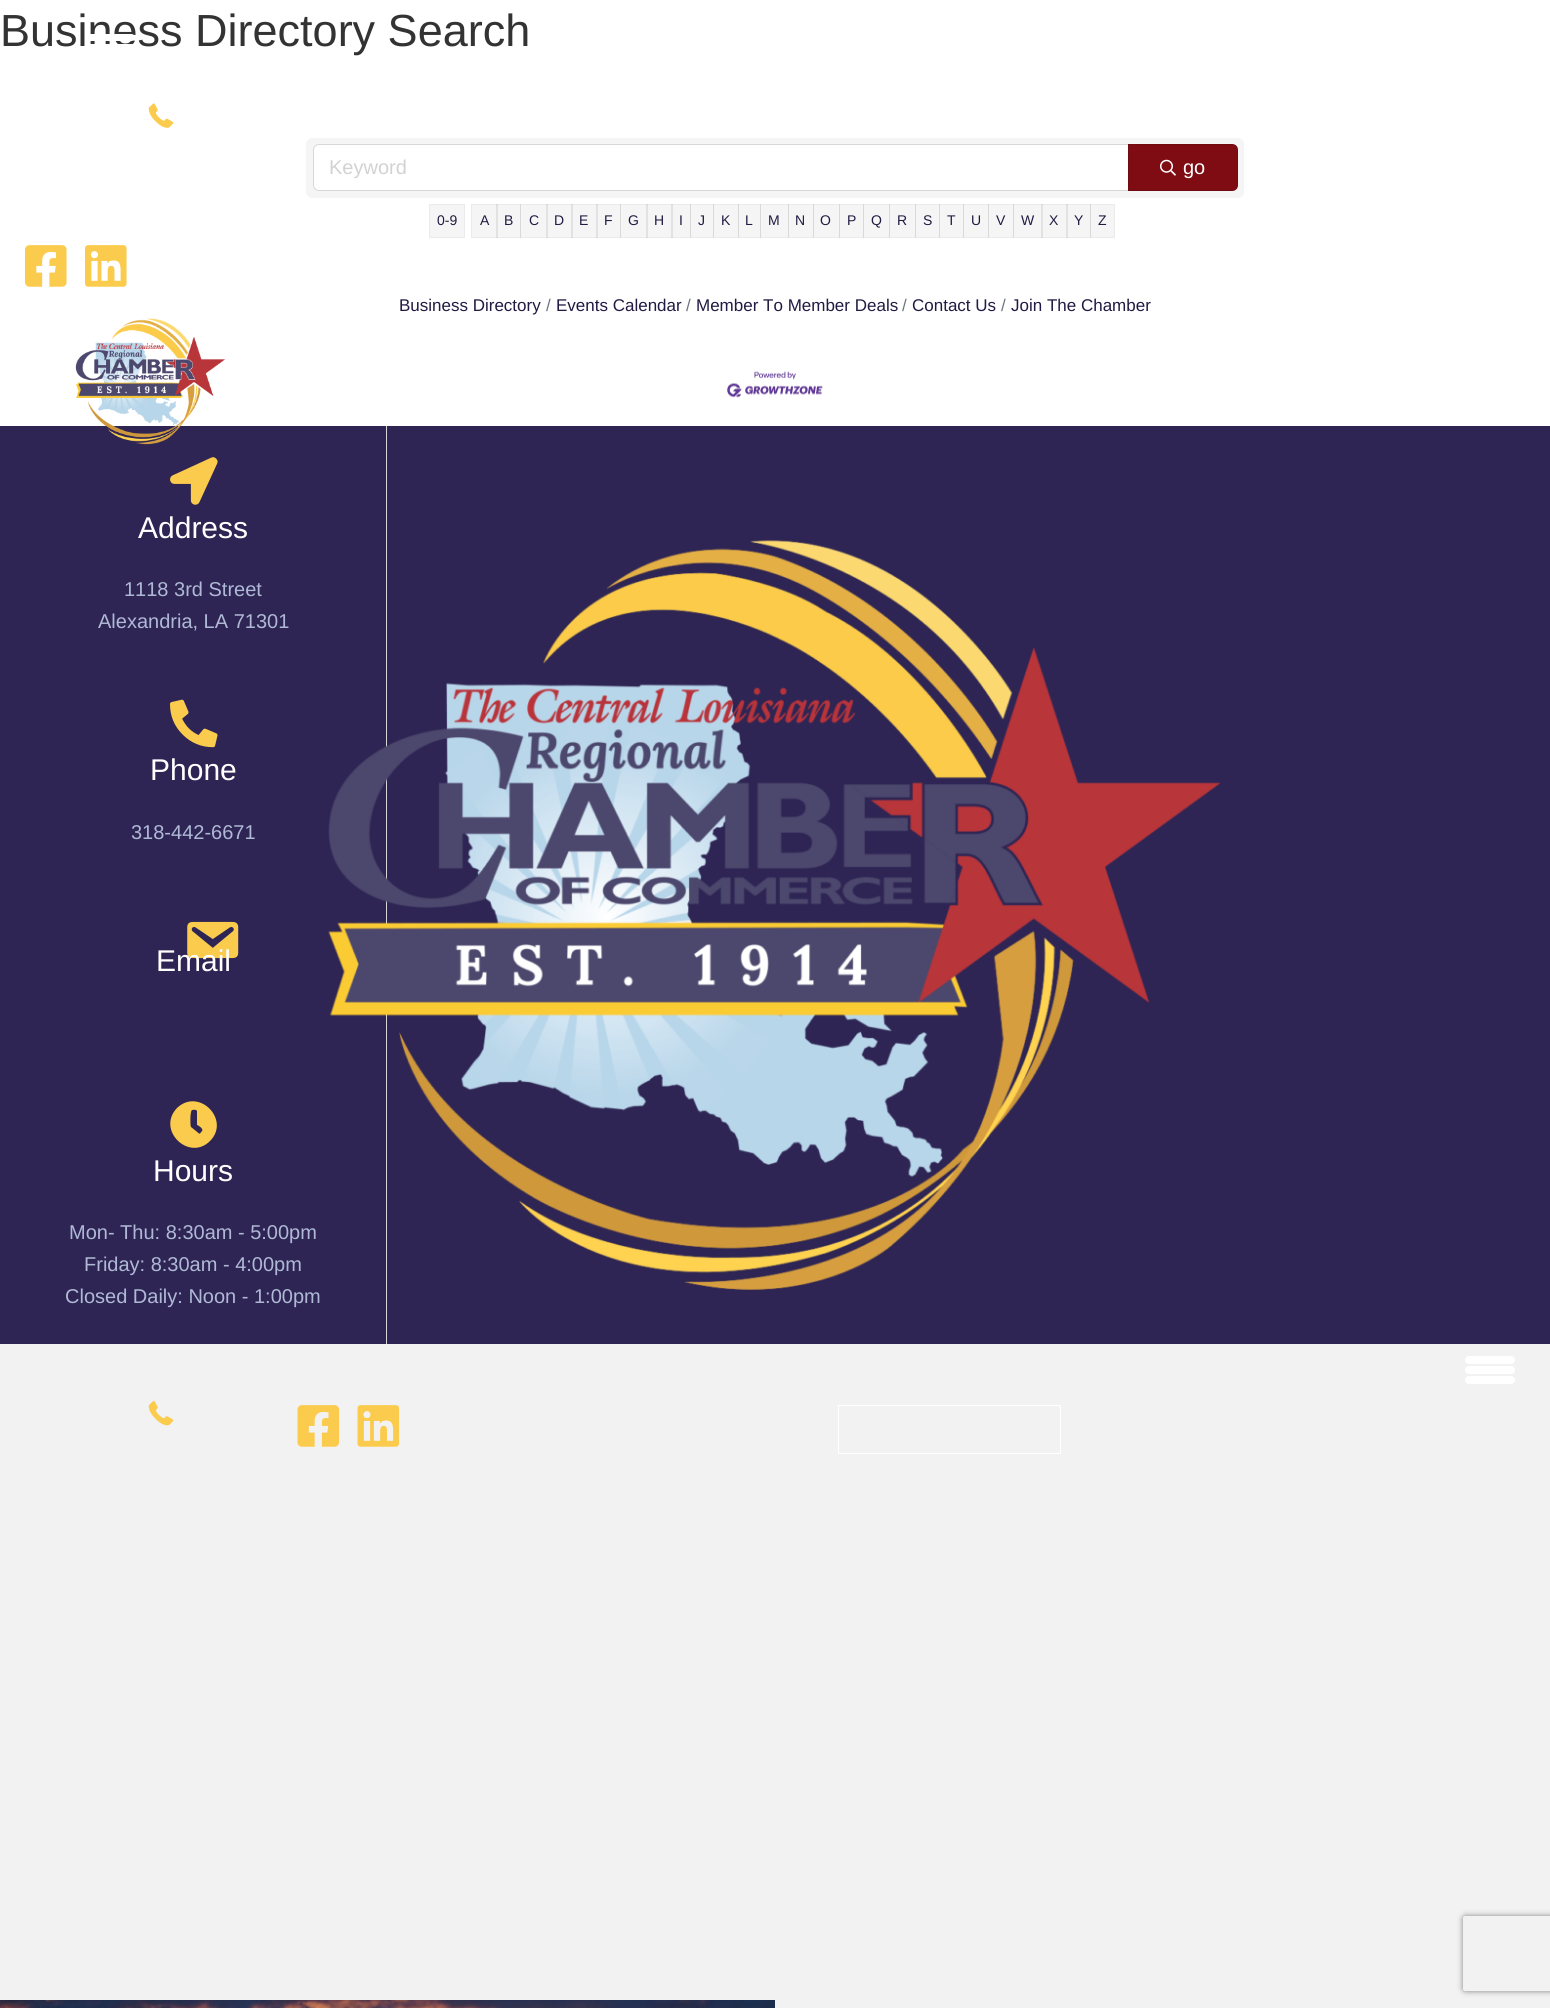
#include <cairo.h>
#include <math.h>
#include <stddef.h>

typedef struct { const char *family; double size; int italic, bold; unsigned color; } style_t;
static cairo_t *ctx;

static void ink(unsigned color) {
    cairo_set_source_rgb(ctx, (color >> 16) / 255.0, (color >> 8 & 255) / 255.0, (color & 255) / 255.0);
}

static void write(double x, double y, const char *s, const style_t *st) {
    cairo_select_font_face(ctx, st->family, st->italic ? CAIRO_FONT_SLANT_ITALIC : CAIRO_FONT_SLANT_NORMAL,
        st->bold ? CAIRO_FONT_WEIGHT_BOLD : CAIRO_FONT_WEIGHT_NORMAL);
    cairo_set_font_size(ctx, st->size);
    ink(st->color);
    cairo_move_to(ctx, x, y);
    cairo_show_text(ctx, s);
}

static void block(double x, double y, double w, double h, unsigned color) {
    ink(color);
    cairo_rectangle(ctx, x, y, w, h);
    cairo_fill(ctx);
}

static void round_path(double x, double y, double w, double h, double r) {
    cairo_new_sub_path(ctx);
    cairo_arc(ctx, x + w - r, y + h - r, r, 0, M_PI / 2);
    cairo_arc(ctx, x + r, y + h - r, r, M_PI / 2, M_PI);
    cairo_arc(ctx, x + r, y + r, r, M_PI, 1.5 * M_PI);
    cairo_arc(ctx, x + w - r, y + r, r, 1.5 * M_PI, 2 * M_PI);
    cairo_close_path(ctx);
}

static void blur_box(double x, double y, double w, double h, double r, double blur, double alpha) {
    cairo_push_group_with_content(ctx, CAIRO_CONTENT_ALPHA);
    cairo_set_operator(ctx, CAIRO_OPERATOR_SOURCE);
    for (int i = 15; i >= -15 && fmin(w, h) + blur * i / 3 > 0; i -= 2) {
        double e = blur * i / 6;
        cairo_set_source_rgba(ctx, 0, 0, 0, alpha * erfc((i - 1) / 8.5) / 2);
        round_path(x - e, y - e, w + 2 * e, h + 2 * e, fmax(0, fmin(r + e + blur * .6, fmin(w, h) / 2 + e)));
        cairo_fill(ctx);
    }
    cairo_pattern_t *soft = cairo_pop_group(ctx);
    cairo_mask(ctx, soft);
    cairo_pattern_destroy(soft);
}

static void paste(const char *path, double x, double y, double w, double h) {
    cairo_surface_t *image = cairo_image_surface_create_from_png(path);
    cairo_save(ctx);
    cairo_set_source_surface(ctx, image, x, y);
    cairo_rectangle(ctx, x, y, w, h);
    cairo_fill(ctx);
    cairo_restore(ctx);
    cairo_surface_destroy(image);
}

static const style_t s1 = {"Liberation Sans", 45, 0, 0, 0x333333};
static const style_t s2 = {"Liberation Sans", 20, 0, 0, 0xd2d2d2};
static const style_t s3 = {"Liberation Sans", 20, 0, 0, 0xffffff};
static const style_t s4 = {"Liberation Sans", 14, 0, 0, 0x221a42};
static const style_t s5 = {"Liberation Sans", 17, 0, 0, 0x221a42};
static const style_t s6 = {"Liberation Sans", 17, 0, 0, 0x6c757d};
static const style_t s7 = {"Liberation Sans", 30, 0, 0, 0xffffff};
static const style_t s8 = {"Liberation Sans", 20, 0, 0, 0xafb9d6};

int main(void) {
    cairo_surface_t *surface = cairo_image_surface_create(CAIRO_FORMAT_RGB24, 1550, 2008);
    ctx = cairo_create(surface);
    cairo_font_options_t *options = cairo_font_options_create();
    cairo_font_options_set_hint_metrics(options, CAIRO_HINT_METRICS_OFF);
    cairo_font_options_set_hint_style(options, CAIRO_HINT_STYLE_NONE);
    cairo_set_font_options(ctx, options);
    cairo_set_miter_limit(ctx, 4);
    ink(0xf2f2f2);
    cairo_paint(ctx);
    block(0, 0, 1550, 426, 0xffffff);
    write(0, 46, "Business Directory Search", &s1);
    ink(0xf5f5f5);
    round_path(306, 138, 938, 60, 6);
    cairo_fill(ctx);
    ink(0xffffff);
    cairo_new_path(ctx);
    cairo_move_to(ctx, 319, 145);
    cairo_line_to(ctx, 1128, 145);
    cairo_line_to(ctx, 1128, 190);
    cairo_line_to(ctx, 319, 190);
    cairo_curve_to(ctx, 316, 190, 314, 188, 314, 185);
    cairo_line_to(ctx, 314, 150);
    cairo_curve_to(ctx, 314, 147, 316, 145, 319, 145);
    cairo_close_path(ctx);
    cairo_fill(ctx);
    cairo_new_path(ctx);
    cairo_move_to(ctx, 319, 144.5);
    cairo_line_to(ctx, 1128.5, 144.5);
    cairo_line_to(ctx, 1128.5, 190.5);
    cairo_line_to(ctx, 319, 190.5);
    cairo_curve_to(ctx, 316, 190.5, 313.5, 188, 313.5, 185);
    cairo_line_to(ctx, 313.5, 150);
    cairo_curve_to(ctx, 313.5, 147, 316, 144.5, 319, 144.5);
    cairo_close_path(ctx);
    cairo_set_source_rgba(ctx, 0, 0, 0, 0.12);
    cairo_set_line_width(ctx, 1);
    cairo_stroke(ctx);
    write(329, 174, "Keyword", &s2);
    ink(0x7f0c13);
    cairo_new_path(ctx);
    cairo_move_to(ctx, 1128, 144);
    cairo_line_to(ctx, 1232, 144);
    cairo_curve_to(ctx, 1235.5, 144, 1238, 146.5, 1238, 150);
    cairo_line_to(ctx, 1238, 185);
    cairo_curve_to(ctx, 1238, 188.5, 1235.5, 191, 1232, 191);
    cairo_line_to(ctx, 1128, 191);
    cairo_close_path(ctx);
    cairo_fill(ctx);
    cairo_new_path(ctx);
    cairo_move_to(ctx, 1128.5, 144.5);
    cairo_line_to(ctx, 1232, 144.5);
    cairo_curve_to(ctx, 1235, 144.5, 1237.5, 147, 1237.5, 150);
    cairo_line_to(ctx, 1237.5, 185);
    cairo_curve_to(ctx, 1237.5, 188, 1235, 190.5, 1232, 190.5);
    cairo_line_to(ctx, 1128.5, 190.5);
    cairo_close_path(ctx);
    cairo_set_source_rgba(ctx, 0, 0, 0, 0.12);
    cairo_stroke(ctx);
    paste("pic1.png", 1160, 159, 16, 17);
    write(1183, 174, "go", &s3);
    ink(0xf5f5f5);
    cairo_rectangle(ctx, 429.5, 204.5, 35, 33);
    cairo_fill_preserve(ctx);
    ink(0xebebeb);
    cairo_stroke(ctx);
    write(437, 225, "0-9", &s4);
    ink(0xf5f5f5);
    cairo_rectangle(ctx, 471.5, 204.5, 26, 33);
    cairo_fill_preserve(ctx);
    ink(0xebebeb);
    cairo_stroke(ctx);
    write(480, 225, "A", &s4);
    cairo_set_source_rgba(ctx, 0, 0, 0, 0.04);
    cairo_rectangle(ctx, 496, 204, 25, 34);
    cairo_fill(ctx);
    cairo_rectangle(ctx, 496.5, 204.5, 24, 33);
    cairo_stroke(ctx);
    write(504, 225, "B", &s4);
    cairo_set_source_rgba(ctx, 0, 0, 0, 0.04);
    cairo_rectangle(ctx, 520, 204, 28, 34);
    cairo_fill(ctx);
    cairo_rectangle(ctx, 520.5, 204.5, 27, 33);
    cairo_stroke(ctx);
    write(529, 225, "C", &s4);
    cairo_set_source_rgba(ctx, 0, 0, 0, 0.04);
    cairo_rectangle(ctx, 546, 204, 27, 34);
    cairo_fill(ctx);
    cairo_rectangle(ctx, 546.5, 204.5, 26, 33);
    cairo_stroke(ctx);
    write(554, 225, "D", &s4);
    cairo_set_source_rgba(ctx, 0, 0, 0, 0.04);
    cairo_rectangle(ctx, 571, 204, 27, 34);
    cairo_fill(ctx);
    cairo_rectangle(ctx, 571.5, 204.5, 26, 33);
    cairo_stroke(ctx);
    write(579, 225, "E", &s4);
    cairo_set_source_rgba(ctx, 0, 0, 0, 0.04);
    cairo_rectangle(ctx, 596, 204, 25, 34);
    cairo_fill(ctx);
    cairo_rectangle(ctx, 596.5, 204.5, 24, 33);
    cairo_stroke(ctx);
    write(604, 225, "F", &s4);
    cairo_set_source_rgba(ctx, 0, 0, 0, 0.04);
    cairo_rectangle(ctx, 620, 204, 28, 34);
    cairo_fill(ctx);
    cairo_rectangle(ctx, 620.5, 204.5, 27, 33);
    cairo_stroke(ctx);
    write(628, 225, "G", &s4);
    cairo_set_source_rgba(ctx, 0, 0, 0, 0.04);
    cairo_rectangle(ctx, 646, 204, 27, 34);
    cairo_fill(ctx);
    cairo_rectangle(ctx, 646.5, 204.5, 26, 33);
    cairo_stroke(ctx);
    write(654, 225, "H", &s4);
    cairo_set_source_rgba(ctx, 0, 0, 0, 0.04);
    cairo_rectangle(ctx, 671, 204, 20, 34);
    cairo_fill(ctx);
    cairo_rectangle(ctx, 671.5, 204.5, 19, 33);
    cairo_stroke(ctx);
    write(679, 225, "I", &s4);
    cairo_set_source_rgba(ctx, 0, 0, 0, 0.04);
    cairo_rectangle(ctx, 690, 204, 24, 34);
    cairo_fill(ctx);
    cairo_rectangle(ctx, 690.5, 204.5, 23, 33);
    cairo_stroke(ctx);
    write(698, 225, "J", &s4);
    cairo_set_source_rgba(ctx, 0, 0, 0, 0.04);
    cairo_rectangle(ctx, 713, 204, 26, 34);
    cairo_fill(ctx);
    cairo_rectangle(ctx, 713.5, 204.5, 25, 33);
    cairo_stroke(ctx);
    write(721, 225, "K", &s4);
    cairo_set_source_rgba(ctx, 0, 0, 0, 0.04);
    cairo_rectangle(ctx, 738, 204, 23, 34);
    cairo_fill(ctx);
    cairo_rectangle(ctx, 738.5, 204.5, 22, 33);
    cairo_stroke(ctx);
    write(745, 225, "L", &s4);
    cairo_set_source_rgba(ctx, 0, 0, 0, 0.04);
    cairo_rectangle(ctx, 760, 204, 29, 34);
    cairo_fill(ctx);
    cairo_rectangle(ctx, 760.5, 204.5, 28, 33);
    cairo_stroke(ctx);
    write(768, 225, "M", &s4);
    cairo_set_source_rgba(ctx, 0, 0, 0, 0.04);
    cairo_rectangle(ctx, 788, 204, 26, 34);
    cairo_fill(ctx);
    cairo_rectangle(ctx, 788.5, 204.5, 25, 33);
    cairo_stroke(ctx);
    write(795, 225, "N", &s4);
    cairo_set_source_rgba(ctx, 0, 0, 0, 0.04);
    cairo_rectangle(ctx, 813, 204, 27, 34);
    cairo_fill(ctx);
    cairo_rectangle(ctx, 813.5, 204.5, 26, 33);
    cairo_stroke(ctx);
    write(820, 225, "O", &s4);
    cairo_set_source_rgba(ctx, 0, 0, 0, 0.04);
    cairo_rectangle(ctx, 839, 204, 25, 34);
    cairo_fill(ctx);
    cairo_rectangle(ctx, 839.5, 204.5, 24, 33);
    cairo_stroke(ctx);
    write(847, 225, "P", &s4);
    cairo_set_source_rgba(ctx, 0, 0, 0, 0.04);
    cairo_rectangle(ctx, 863, 204, 27, 34);
    cairo_fill(ctx);
    cairo_rectangle(ctx, 863.5, 204.5, 26, 33);
    cairo_stroke(ctx);
    write(871, 225, "Q", &s4);
    cairo_set_source_rgba(ctx, 0, 0, 0, 0.04);
    cairo_rectangle(ctx, 889, 204, 27, 34);
    cairo_fill(ctx);
    cairo_rectangle(ctx, 889.5, 204.5, 26, 33);
    cairo_stroke(ctx);
    write(897, 225, "R", &s4);
    cairo_set_source_rgba(ctx, 0, 0, 0, 0.04);
    cairo_rectangle(ctx, 915, 204, 25, 34);
    cairo_fill(ctx);
    cairo_rectangle(ctx, 915.5, 204.5, 24, 33);
    cairo_stroke(ctx);
    write(923, 225, "S", &s4);
    cairo_set_source_rgba(ctx, 0, 0, 0, 0.04);
    cairo_rectangle(ctx, 939, 204, 25, 34);
    cairo_fill(ctx);
    cairo_rectangle(ctx, 939.5, 204.5, 24, 33);
    cairo_stroke(ctx);
    write(947, 225, "T", &s4);
    cairo_set_source_rgba(ctx, 0, 0, 0, 0.04);
    cairo_rectangle(ctx, 963, 204, 26, 34);
    cairo_fill(ctx);
    cairo_rectangle(ctx, 963.5, 204.5, 25, 33);
    cairo_stroke(ctx);
    write(971, 225, "U", &s4);
    cairo_set_source_rgba(ctx, 0, 0, 0, 0.04);
    cairo_rectangle(ctx, 988, 204, 26, 34);
    cairo_fill(ctx);
    cairo_rectangle(ctx, 988.5, 204.5, 25, 33);
    cairo_stroke(ctx);
    write(996, 225, "V", &s4);
    cairo_set_source_rgba(ctx, 0, 0, 0, 0.04);
    cairo_rectangle(ctx, 1013, 204, 30, 34);
    cairo_fill(ctx);
    cairo_rectangle(ctx, 1013.5, 204.5, 29, 33);
    cairo_stroke(ctx);
    write(1021, 225, "W", &s4);
    cairo_set_source_rgba(ctx, 0, 0, 0, 0.04);
    cairo_rectangle(ctx, 1041, 204, 27, 34);
    cairo_fill(ctx);
    cairo_rectangle(ctx, 1041.5, 204.5, 26, 33);
    cairo_stroke(ctx);
    write(1049, 225, "X", &s4);
    cairo_set_source_rgba(ctx, 0, 0, 0, 0.04);
    cairo_rectangle(ctx, 1066, 204, 25, 34);
    cairo_fill(ctx);
    cairo_rectangle(ctx, 1066.5, 204.5, 24, 33);
    cairo_stroke(ctx);
    write(1074, 225, "Y", &s4);
    cairo_set_source_rgba(ctx, 0, 0, 0, 0.04);
    cairo_rectangle(ctx, 1090, 204, 25, 34);
    cairo_fill(ctx);
    cairo_rectangle(ctx, 1090.5, 204.5, 24, 33);
    cairo_stroke(ctx);
    write(1098, 225, "Z", &s4);
    write(399, 311, "Business Directory", &s5);
    write(546, 311, "/", &s6);
    write(556, 311, "Events Calendar", &s5);
    write(686, 311, "/", &s6);
    write(696, 311, "Member To Member Deals", &s5);
    write(902, 311, "/", &s6);
    write(912, 311, "Contact Us", &s5);
    write(1001, 311, "/", &s6);
    write(1011, 311, "Join The Chamber", &s5);
    paste("pic2.png", 727, 371, 96, 27);
    ink(0xffffff);
    round_path(85, 44, 50, 7, 3.5);
    cairo_fill(ctx);
    round_path(85, 34, 50, 7, 3.5);
    cairo_fill(ctx);
    paste("pic3.png", 148, 103, 26, 25);
    paste("pic4.png", 25, 245, 42, 42);
    paste("pic5.png", 85, 245, 42, 42);
    block(0, 426, 1550, 918, 0x2e2554);
    paste("pic6.png", 75, 318, 151, 127);
    block(386, 426, 1, 918, 0xd6d6d6);
    paste("pic7.png", 328, 540, 893, 750);
    ink(0xffffff);
    round_path(1465, 1366, 50, 8, 4);
    cairo_fill(ctx);
    round_path(1465, 1356, 50, 8, 4);
    cairo_fill(ctx);
    round_path(1465, 1376, 50, 8, 4);
    cairo_fill(ctx);
    paste("pic8.png", 148, 1400, 26, 26);
    paste("pic9.png", 297, 1405, 43, 42);
    paste("pic10.png", 357, 1405, 43, 42);
    cairo_rectangle(ctx, 838.5, 1405.5, 222, 48);
    cairo_stroke(ctx);
    paste("pic11.png", 170, 457, 48, 48);
    write(138, 538, "Address", &s7);
    write(124, 596, "1118 3rd Street", &s8);
    write(98, 628, "Alexandria, LA 71301", &s8);
    paste("pic12.png", 170, 699, 48, 49);
    write(150, 780, "Phone", &s7);
    write(131, 839, "318-442-6671", &s8);
    paste("pic13.png", 187, 921, 52, 38);
    write(156, 971, "Email", &s7);
    ink(0xfbcb4d);
    cairo_new_path(ctx);
    cairo_move_to(ctx, 177, 1108);
    cairo_curve_to(ctx, 199, 1087, 231, 1120, 210, 1141);
    cairo_curve_to(ctx, 189, 1162, 156, 1130, 177, 1108);
    cairo_close_path(ctx);
    cairo_move_to(ctx, 202, 1131);
    cairo_curve_to(ctx, 204, 1129, 198, 1125, 197, 1125);
    cairo_line_to(ctx, 197, 1111);
    cairo_curve_to(ctx, 196, 1109, 193, 1110, 192, 1110);
    cairo_curve_to(ctx, 190, 1111, 190, 1126, 191, 1127);
    cairo_line_to(ctx, 196, 1131);
    cairo_curve_to(ctx, 200, 1134, 199, 1135, 202, 1131);
    cairo_close_path(ctx);
    cairo_fill(ctx);
    write(153, 1181, "Hours", &s7);
    write(69, 1239, "Mon- Thu: 8:30am - 5:00pm", &s8);
    write(84, 1271, "Friday: 8:30am - 4:00pm", &s8);
    write(65, 1303, "Closed Daily: Noon - 1:00pm", &s8);
    paste("pic14.png", 0, 2000, 775, 8);
    cairo_save(ctx);
    cairo_set_fill_rule(ctx, CAIRO_FILL_RULE_EVEN_ODD);
    cairo_new_path(ctx);
    cairo_move_to(ctx, 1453, 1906);
    cairo_line_to(ctx, 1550, 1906);
    cairo_line_to(ctx, 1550, 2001);
    cairo_line_to(ctx, 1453, 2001);
    cairo_close_path(ctx);
    cairo_move_to(ctx, 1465.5, 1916);
    cairo_line_to(ctx, 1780.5, 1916);
    cairo_curve_to(ctx, 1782, 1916, 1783, 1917, 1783, 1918.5);
    cairo_line_to(ctx, 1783, 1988.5);
    cairo_curve_to(ctx, 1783, 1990, 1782, 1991, 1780.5, 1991);
    cairo_line_to(ctx, 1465.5, 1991);
    cairo_curve_to(ctx, 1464, 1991, 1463, 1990, 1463, 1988.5);
    cairo_line_to(ctx, 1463, 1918.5);
    cairo_curve_to(ctx, 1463, 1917, 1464, 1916, 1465.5, 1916);
    cairo_close_path(ctx);
    cairo_clip(ctx);
    ink(0x808080);
    blur_box(1463, 1916, 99, 75, 2.5, 3, 1);
    cairo_restore(ctx);
    cairo_surface_write_to_png(surface, "screenshot.png");
    cairo_font_options_destroy(options);
    cairo_destroy(ctx);
    cairo_surface_destroy(surface);
    return 0;
}
